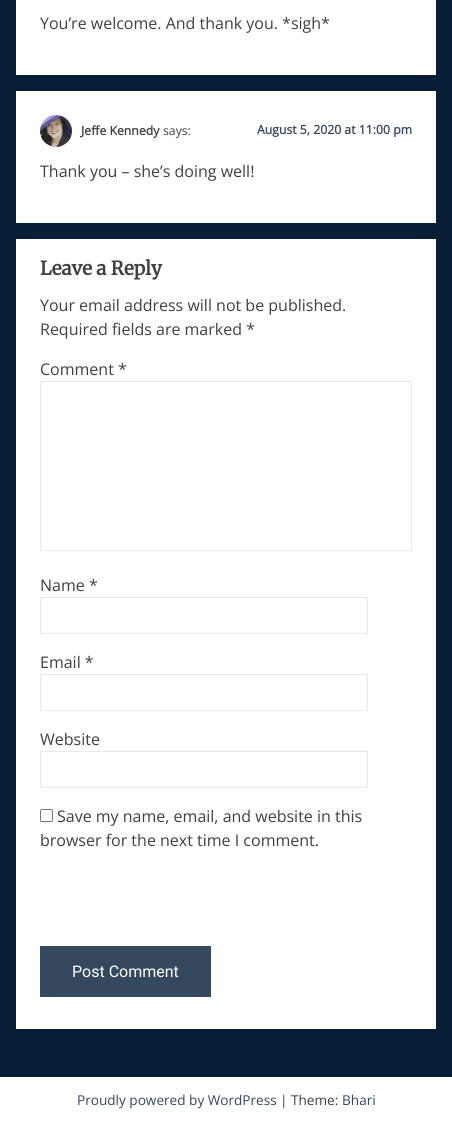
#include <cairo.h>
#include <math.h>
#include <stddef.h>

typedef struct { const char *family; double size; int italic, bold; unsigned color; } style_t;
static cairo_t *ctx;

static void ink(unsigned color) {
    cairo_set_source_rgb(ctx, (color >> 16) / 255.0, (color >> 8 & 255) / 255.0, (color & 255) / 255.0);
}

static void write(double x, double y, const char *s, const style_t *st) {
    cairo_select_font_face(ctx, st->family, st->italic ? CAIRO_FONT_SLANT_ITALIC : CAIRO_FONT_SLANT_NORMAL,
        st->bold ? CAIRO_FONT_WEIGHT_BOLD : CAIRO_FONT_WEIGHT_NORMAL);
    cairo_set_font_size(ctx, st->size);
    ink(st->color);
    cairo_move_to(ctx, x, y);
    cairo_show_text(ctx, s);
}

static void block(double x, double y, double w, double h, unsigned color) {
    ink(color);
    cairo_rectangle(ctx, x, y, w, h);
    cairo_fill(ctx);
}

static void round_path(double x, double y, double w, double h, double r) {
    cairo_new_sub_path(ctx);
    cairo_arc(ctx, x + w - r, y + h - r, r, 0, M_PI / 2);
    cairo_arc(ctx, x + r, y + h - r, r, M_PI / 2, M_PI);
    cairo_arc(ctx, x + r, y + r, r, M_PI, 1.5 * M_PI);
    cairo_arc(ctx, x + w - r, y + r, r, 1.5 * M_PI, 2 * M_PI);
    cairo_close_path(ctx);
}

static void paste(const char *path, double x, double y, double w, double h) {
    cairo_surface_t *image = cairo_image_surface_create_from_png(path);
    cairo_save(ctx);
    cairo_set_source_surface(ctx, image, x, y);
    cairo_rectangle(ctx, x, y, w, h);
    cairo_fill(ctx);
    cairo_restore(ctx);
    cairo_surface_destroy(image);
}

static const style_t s1 = {"Open Sans", 16, 0, 0, 0x404040};
static const style_t s2 = {"Open Sans", 12.25, 0, 1, 0x404040};
static const style_t s3 = {"Open Sans", 12.25, 0, 0, 0x404040};
static const style_t s4 = {"Open Sans", 12.25, 0, 1, 0x34495e};
static const style_t s5 = {"Merriweather", 18.75, 0, 1, 0x404040};
static const style_t s6 = {"Roboto", 16, 0, 0, 0xffffff};
static const style_t s7 = {"Open Sans", 13.6, 0, 0, 0x34495e};
static const style_t s8 = {"Open Sans", 13.6, 0, 0, 0x404040};

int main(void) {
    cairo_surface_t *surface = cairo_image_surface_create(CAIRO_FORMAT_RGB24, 452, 1124);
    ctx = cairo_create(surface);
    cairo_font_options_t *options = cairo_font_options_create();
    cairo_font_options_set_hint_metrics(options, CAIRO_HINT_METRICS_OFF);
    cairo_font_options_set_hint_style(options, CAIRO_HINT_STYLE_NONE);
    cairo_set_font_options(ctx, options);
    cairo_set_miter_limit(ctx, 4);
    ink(0x081e35);
    cairo_paint(ctx);
    block(16, 0, 420, 75, 0xffffff);
    write(40, 29, "You’re welcome. And thank you. *sigh*", &s1);
    block(16, 91, 420, 132, 0xffffff);
    paste("pic1.png", 40, 115, 32, 32);
    write(81, 135, "Jeffe Kennedy", &s2);
    write(163, 135, "says:", &s3);
    write(257, 134, "August 5, 2020 at 11:00 pm", &s4);
    write(40, 177, "Thank you – she’s doing well!", &s1);
    block(16, 239, 420, 790, 0xffffff);
    write(40, 275, "Leave a Reply", &s5);
    write(40, 311, "Your email address will not be published.", &s1);
    write(40, 335, "Required fields are marked *", &s1);
    write(40, 375, "Comment *", &s1);
    cairo_rectangle(ctx, 40.5, 381.5, 371, 169);
    ink(0xeaeaea);
    cairo_set_line_width(ctx, 1);
    cairo_stroke(ctx);
    write(40, 591, "Name *", &s1);
    cairo_rectangle(ctx, 40.5, 597.5, 327, 36);
    ink(0xeaeaea);
    cairo_stroke(ctx);
    write(40, 668, "Email *", &s1);
    cairo_rectangle(ctx, 40.5, 674.5, 327, 36);
    ink(0xeaeaea);
    cairo_stroke(ctx);
    write(40, 745, "Website", &s1);
    cairo_rectangle(ctx, 40.5, 751.5, 327, 36);
    ink(0xeaeaea);
    cairo_stroke(ctx);
    round_path(40.5, 809.5, 12, 12, 1.5);
    ink(0x767676);
    cairo_stroke(ctx);
    write(57, 822, "Save my name, email, and website in this", &s1);
    write(40, 846, "browser for the next time I comment.", &s1);
    block(40, 946, 171, 51, 0x34495e);
    write(72, 977, "Post Comment", &s6);
    block(0, 1077, 452, 47, 0xffffff);
    write(77, 1105, "Proudly powered by WordPress", &s7);
    write(280, 1105, "| Theme:", &s8);
    write(342, 1105, "Bhari", &s7);
    cairo_surface_write_to_png(surface, "screenshot.png");
    cairo_font_options_destroy(options);
    cairo_destroy(ctx);
    cairo_surface_destroy(surface);
    return 0;
}
